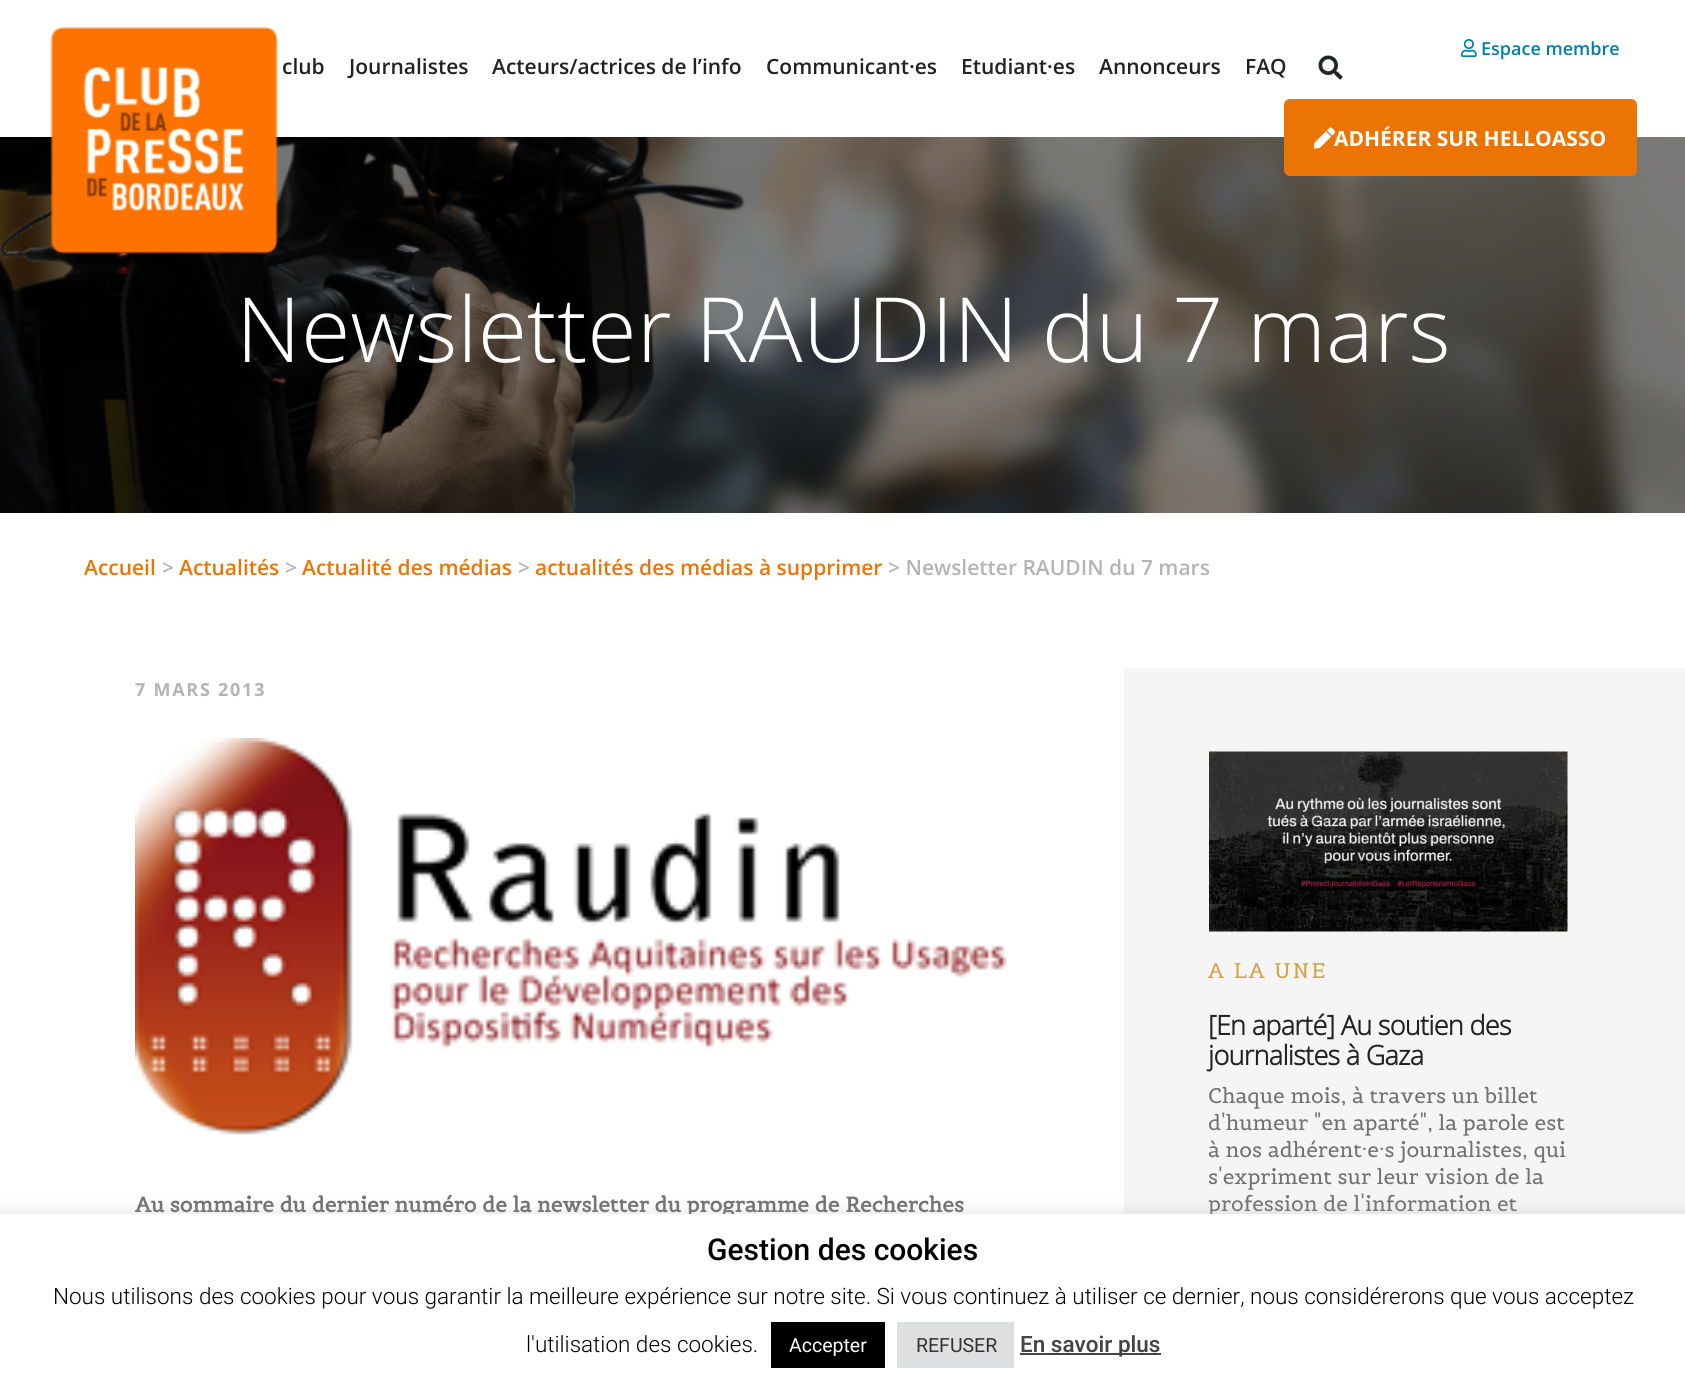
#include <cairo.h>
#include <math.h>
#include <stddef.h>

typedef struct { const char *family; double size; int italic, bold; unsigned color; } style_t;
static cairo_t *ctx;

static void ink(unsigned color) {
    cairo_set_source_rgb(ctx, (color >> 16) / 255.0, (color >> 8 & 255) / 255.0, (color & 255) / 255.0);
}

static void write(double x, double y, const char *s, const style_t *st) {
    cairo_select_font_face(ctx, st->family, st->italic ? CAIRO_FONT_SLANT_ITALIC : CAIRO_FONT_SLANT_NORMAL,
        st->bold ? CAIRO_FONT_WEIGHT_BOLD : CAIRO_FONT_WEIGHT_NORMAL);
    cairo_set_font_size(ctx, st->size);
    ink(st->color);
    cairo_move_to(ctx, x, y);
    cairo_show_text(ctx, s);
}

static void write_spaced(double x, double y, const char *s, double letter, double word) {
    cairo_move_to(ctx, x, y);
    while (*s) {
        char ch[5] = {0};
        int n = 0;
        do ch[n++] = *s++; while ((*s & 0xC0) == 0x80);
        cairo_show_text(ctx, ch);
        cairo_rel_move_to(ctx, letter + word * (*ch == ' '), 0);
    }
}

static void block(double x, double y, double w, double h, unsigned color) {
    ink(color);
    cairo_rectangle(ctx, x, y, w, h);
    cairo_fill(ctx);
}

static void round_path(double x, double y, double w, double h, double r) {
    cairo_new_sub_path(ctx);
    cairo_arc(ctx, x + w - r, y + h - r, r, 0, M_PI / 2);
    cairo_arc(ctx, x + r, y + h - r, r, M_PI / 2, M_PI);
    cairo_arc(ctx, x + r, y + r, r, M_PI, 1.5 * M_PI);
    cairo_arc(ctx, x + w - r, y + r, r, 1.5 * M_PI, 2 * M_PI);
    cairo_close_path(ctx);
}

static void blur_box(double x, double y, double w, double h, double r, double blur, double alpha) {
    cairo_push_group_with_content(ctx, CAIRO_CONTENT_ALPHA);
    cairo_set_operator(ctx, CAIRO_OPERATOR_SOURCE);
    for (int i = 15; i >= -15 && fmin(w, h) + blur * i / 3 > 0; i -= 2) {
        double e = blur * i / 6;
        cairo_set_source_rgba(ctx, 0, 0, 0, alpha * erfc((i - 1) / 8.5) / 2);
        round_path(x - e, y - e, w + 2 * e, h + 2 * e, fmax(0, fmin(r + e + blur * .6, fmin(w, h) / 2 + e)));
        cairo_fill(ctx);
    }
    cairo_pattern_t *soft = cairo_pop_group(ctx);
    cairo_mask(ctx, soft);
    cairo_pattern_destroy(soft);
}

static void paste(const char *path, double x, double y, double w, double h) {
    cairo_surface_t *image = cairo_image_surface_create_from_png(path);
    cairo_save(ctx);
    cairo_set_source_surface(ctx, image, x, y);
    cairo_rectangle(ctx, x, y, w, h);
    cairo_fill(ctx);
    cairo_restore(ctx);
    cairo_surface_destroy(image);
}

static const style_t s1 = {"Open Sans SemiBold", 18, 0, 0, 0x007eae};
static const style_t s2 = {"Open Sans SemiBold", 21, 0, 0, 0x222222};
static const style_t s3 = {"Open Sans", 21, 0, 1, 0xffffff};
static const style_t s4 = {"Open Sans Light", 90, 0, 0, 0xffffff};
static const style_t s5 = {"Open Sans SemiBold", 21, 0, 0, 0xec7405};
static const style_t s6 = {"Open Sans SemiBold", 21, 0, 0, 0xb4b4b4};
static const style_t s7 = {"Belgrano", 21, 0, 1, 0x727272};
static const style_t s8 = {"Belgrano", 21, 0, 0, 0x727272};
static const style_t s9 = {"Roboto Medium", 30, 0, 0, 0x000000};
static const style_t s10 = {"Roboto Light", 22.5, 0, 0, 0x000000};
static const style_t s11 = {"Roboto", 19.5, 0, 0, 0xffffff};
static const style_t s12 = {"Roboto", 19.5, 0, 0, 0x333333};
static const style_t s13 = {"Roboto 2 Medium", 22.5, 0, 0, 0x444444};

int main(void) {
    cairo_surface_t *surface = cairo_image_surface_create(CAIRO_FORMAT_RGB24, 1685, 1385);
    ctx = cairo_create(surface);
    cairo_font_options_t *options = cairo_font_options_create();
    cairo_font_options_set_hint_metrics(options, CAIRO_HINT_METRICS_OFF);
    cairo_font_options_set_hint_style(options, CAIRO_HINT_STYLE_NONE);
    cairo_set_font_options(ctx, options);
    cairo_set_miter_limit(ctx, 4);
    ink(0xffffff);
    cairo_paint(ctx);
    paste("pic5.png", 0, 137, 1685, 376);
    paste("pic1.png", 50, 26, 228, 228);
    paste("pic2.png", 1461, 39, 16, 18);
    write(1481, 55, "Espace membre", &s1);
    write(282, 74, "club", &s2);
    write(349, 74, "Journalistes", &s2);
    write(492, 74, "Acteurs/actrices de l’info", &s2);
    write(766, 74, "Communicant·es", &s2);
    write(961, 74, "Etudiant·es", &s2);
    write(1099, 74, "Annonceurs", &s2);
    write(1245, 74, "FAQ", &s2);
    paste("pic3.png", 1318, 55, 25, 25);
    ink(0xec7405);
    round_path(1285, 100, 351, 75, 5);
    cairo_fill_preserve(ctx);
    cairo_stroke(ctx);
    write(1334, 146, "ADHÉRER SUR HELLOASSO", &s3);
    paste("pic4.png", 1314, 127, 21, 22);
    write(236, 362, "Newsletter RAUDIN du 7 mars", &s4);
    write(84, 575, "Accueil", &s5);
    write(162, 575, ">", &s6);
    write(179, 575, "Actualités", &s5);
    write(285, 575, ">", &s6);
    write(302, 575, "Actualité des médias", &s5);
    write(518, 575, ">", &s6);
    write(535, 575, "actualités des médias à supprimer", &s5);
    write(888, 575, "> Newsletter RAUDIN du 7 mars", &s6);
    cairo_select_font_face(ctx, "Open Sans", CAIRO_FONT_SLANT_NORMAL, CAIRO_FONT_WEIGHT_BOLD);
    cairo_set_font_size(ctx, 18);
    write_spaced(135, 696, "7 MARS 2013", 1.75, 0);
    paste("pic6.png", 135, 738, 872, 397);
    write(135, 1212, "Au sommaire du dernier numéro de la newsletter du programme de Recherches", &s7);
    block(1124, 668, 561, 546, 0xf5f5f5);
    paste("pic7.png", 1209, 751, 359, 181);
    cairo_select_font_face(ctx, "Belgrano", CAIRO_FONT_SLANT_NORMAL, CAIRO_FONT_WEIGHT_NORMAL);
    ink(0xd5a34e);
    write_spaced(1208, 978, "A LA UNE", 2, 0);
    cairo_select_font_face(ctx, "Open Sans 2", CAIRO_FONT_SLANT_NORMAL, CAIRO_FONT_WEIGHT_BOLD);
    cairo_set_font_size(ctx, 27);
    ink(0x222222);
    write_spaced(1208, 1035, "[En aparté] Au soutien des", -0.7, 0);
    write_spaced(1208, 1065, "journalistes à Gaza", -0.7, 0);
    write(1208, 1103, "Chaque mois, à travers un billet", &s8);
    write(1208, 1130, "d'humeur \"en aparté\", la parole est", &s8);
    write(1208, 1157, "à nos adhérent·e·s journalistes, qui", &s8);
    write(1208, 1184, "s'expriment sur leur vision de la", &s8);
    write(1208, 1211, "profession de l'information et", &s8);
    ink(0xacabab);
    blur_box(0, 1212, 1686, 173, 0, 7.5, 0.3);
    block(0, 1214, 1685, 171, 0xffffff);
    write(707, 1260, "Gestion des cookies", &s9);
    write(53, 1304, "Nous utilisons des cookies pour vous garantir la meilleure expérience sur notre site. Si vous continuez à utiliser ce dernier, nous considérerons que vous acceptez", &s10);
    write(526, 1352, "l'utilisation des cookies.", &s10);
    block(771, 1322, 114, 46, 0x000000);
    write(789, 1352, "Accepter", &s11);
    block(897, 1322, 117, 46, 0xdedfe0);
    write(916, 1352, "REFUSER", &s12);
    block(1020, 1353, 141, 2, 0x444444);
    write(1020, 1352, "En savoir plus", &s13);
    cairo_surface_write_to_png(surface, "screenshot.png");
    cairo_font_options_destroy(options);
    cairo_destroy(ctx);
    cairo_surface_destroy(surface);
    return 0;
}
